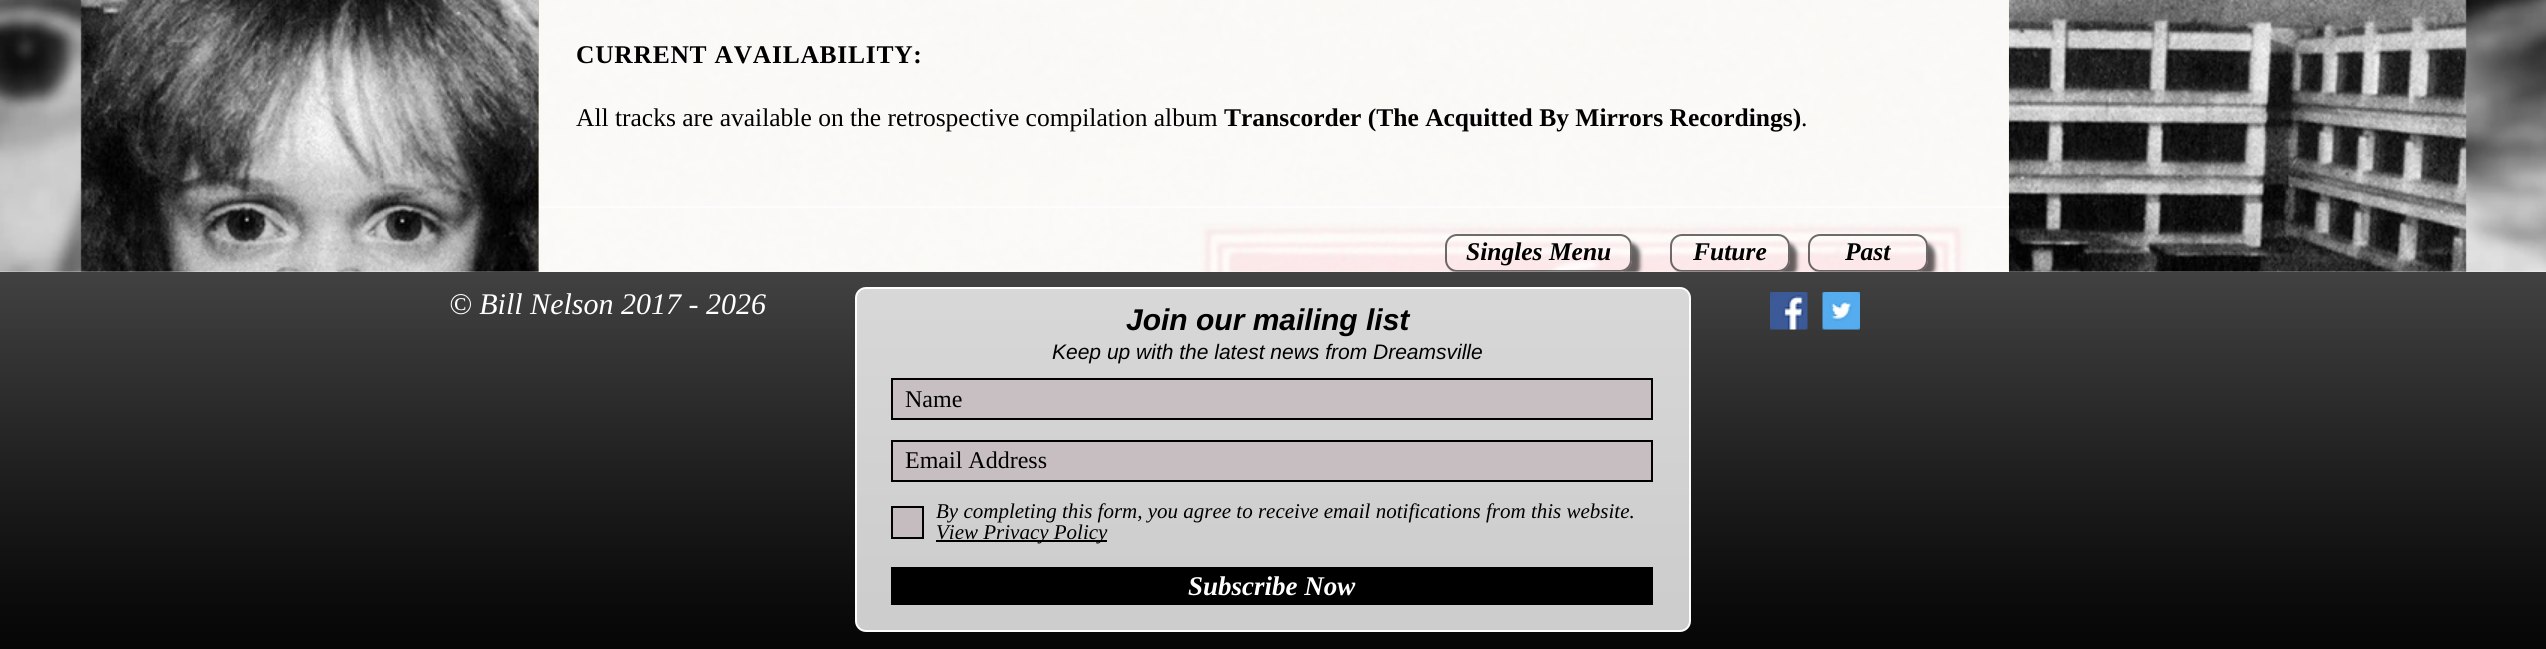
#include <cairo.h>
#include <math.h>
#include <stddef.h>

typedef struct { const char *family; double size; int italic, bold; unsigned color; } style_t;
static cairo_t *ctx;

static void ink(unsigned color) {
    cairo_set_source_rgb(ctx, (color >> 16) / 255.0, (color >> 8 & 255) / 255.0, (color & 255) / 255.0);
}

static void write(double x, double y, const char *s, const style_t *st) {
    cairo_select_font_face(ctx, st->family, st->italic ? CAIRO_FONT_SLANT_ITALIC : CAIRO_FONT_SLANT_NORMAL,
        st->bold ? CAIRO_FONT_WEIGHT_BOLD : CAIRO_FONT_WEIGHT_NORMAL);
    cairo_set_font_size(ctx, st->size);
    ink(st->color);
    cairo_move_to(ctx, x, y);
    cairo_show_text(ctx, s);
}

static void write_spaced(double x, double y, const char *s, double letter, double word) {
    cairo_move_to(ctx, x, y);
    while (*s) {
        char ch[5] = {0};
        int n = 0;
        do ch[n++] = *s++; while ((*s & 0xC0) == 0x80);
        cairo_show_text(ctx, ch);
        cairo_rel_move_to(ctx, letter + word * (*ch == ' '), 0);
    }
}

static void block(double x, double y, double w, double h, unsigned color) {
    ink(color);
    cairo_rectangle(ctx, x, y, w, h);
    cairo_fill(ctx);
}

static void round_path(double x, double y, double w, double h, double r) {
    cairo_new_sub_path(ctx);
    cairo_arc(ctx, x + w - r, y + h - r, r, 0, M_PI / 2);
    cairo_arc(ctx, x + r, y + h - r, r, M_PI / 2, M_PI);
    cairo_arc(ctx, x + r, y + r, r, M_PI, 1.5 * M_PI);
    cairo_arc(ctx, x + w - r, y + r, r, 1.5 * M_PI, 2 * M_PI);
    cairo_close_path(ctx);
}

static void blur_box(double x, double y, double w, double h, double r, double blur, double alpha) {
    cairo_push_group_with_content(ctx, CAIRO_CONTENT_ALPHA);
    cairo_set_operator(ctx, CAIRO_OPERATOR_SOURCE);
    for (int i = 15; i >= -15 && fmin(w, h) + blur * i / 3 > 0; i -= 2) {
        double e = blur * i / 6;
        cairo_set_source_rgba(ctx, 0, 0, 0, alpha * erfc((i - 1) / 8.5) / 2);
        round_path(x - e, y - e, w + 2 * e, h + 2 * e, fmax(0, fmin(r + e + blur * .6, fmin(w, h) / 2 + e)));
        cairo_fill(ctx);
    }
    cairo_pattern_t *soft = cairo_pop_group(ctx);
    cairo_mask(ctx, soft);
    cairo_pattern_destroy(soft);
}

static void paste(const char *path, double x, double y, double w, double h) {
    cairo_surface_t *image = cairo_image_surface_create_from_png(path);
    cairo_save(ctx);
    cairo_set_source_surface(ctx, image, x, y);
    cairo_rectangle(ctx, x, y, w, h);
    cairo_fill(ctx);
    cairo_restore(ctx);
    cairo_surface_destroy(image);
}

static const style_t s1 = {"Liberation Serif", 25.5, 0, 0, 0x000000};
static const style_t s2 = {"Liberation Serif", 25.5, 0, 1, 0x000000};
static const style_t s3 = {"Liberation Serif", 25.5, 1, 1, 0x000000};
static const style_t s4 = {"Liberation Serif", 30, 1, 0, 0xffffff};
static const style_t s5 = {"Liberation Sans", 30, 1, 1, 0x000000};
static const style_t s6 = {"Liberation Sans", 21, 1, 0, 0x000000};
static const style_t s7 = {"Liberation Serif", 24, 0, 0, 0x000000};
static const style_t s8 = {"Liberation Serif", 21, 1, 0, 0x000000};
static const style_t s9 = {"Liberation Serif", 27, 1, 1, 0xffffff};

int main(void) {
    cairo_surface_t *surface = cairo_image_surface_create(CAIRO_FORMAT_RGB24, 2546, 649);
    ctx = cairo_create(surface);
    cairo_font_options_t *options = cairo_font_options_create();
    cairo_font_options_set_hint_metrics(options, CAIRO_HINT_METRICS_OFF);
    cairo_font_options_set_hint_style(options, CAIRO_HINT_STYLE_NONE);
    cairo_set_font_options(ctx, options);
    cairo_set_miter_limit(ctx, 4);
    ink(0xffffff);
    cairo_paint(ctx);
    paste("pic1.png", 0, 0, 2546, 272);
    cairo_set_source_rgba(ctx, 1, 1, 1, 0.9);
    cairo_rectangle(ctx, 539, 0, 1470, 272);
    cairo_fill(ctx);
    cairo_select_font_face(ctx, "Liberation Serif", CAIRO_FONT_SLANT_NORMAL, CAIRO_FONT_WEIGHT_BOLD);
    cairo_set_font_size(ctx, 25.5);
    ink(0x000000);
    write_spaced(576, 63, "CURRENT AVAILABILITY:", 0.75, 0);
    write(576, 126, "All tracks are available on the retrospective compilation album", &s1);
    write(1224, 126, "Transcorder (The Acquitted By Mirrors Recordings)", &s2);
    write(1801, 126, ".", &s1);
    block(539, 206, 1470, 2, 0xfefdfd);
    cairo_save(ctx);
    cairo_set_fill_rule(ctx, CAIRO_FILL_RULE_EVEN_ODD);
    cairo_new_path(ctx);
    cairo_move_to(ctx, 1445, 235);
    cairo_line_to(ctx, 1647, 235);
    cairo_line_to(ctx, 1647, 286);
    cairo_line_to(ctx, 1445, 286);
    cairo_close_path(ctx);
    cairo_move_to(ctx, 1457, 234);
    cairo_line_to(ctx, 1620, 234);
    cairo_curve_to(ctx, 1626.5, 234, 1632, 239.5, 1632, 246);
    cairo_line_to(ctx, 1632, 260);
    cairo_curve_to(ctx, 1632, 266.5, 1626.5, 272, 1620, 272);
    cairo_line_to(ctx, 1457, 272);
    cairo_curve_to(ctx, 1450.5, 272, 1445, 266.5, 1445, 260);
    cairo_line_to(ctx, 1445, 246);
    cairo_curve_to(ctx, 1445, 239.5, 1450.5, 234, 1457, 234);
    cairo_close_path(ctx);
    cairo_clip(ctx);
    ink(0x000000);
    blur_box(1452, 242, 188, 37, 12, 2, 0.6);
    cairo_restore(ctx);
    round_path(1446, 235, 185, 36, 11);
    cairo_set_source_rgba(ctx, 0, 0, 0, 0.57);
    cairo_stroke(ctx);
    write(1466, 260, "Singles Menu", &s3);
    cairo_save(ctx);
    cairo_set_fill_rule(ctx, CAIRO_FILL_RULE_EVEN_ODD);
    cairo_new_path(ctx);
    cairo_move_to(ctx, 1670, 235);
    cairo_line_to(ctx, 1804, 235);
    cairo_line_to(ctx, 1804, 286);
    cairo_line_to(ctx, 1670, 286);
    cairo_close_path(ctx);
    cairo_move_to(ctx, 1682, 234);
    cairo_line_to(ctx, 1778, 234);
    cairo_curve_to(ctx, 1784.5, 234, 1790, 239.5, 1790, 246);
    cairo_line_to(ctx, 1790, 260);
    cairo_curve_to(ctx, 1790, 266.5, 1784.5, 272, 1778, 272);
    cairo_line_to(ctx, 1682, 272);
    cairo_curve_to(ctx, 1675.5, 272, 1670, 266.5, 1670, 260);
    cairo_line_to(ctx, 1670, 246);
    cairo_curve_to(ctx, 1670, 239.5, 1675.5, 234, 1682, 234);
    cairo_close_path(ctx);
    cairo_clip(ctx);
    ink(0x000000);
    blur_box(1677, 242, 120, 37, 12, 2, 0.6);
    cairo_restore(ctx);
    round_path(1671, 235, 118, 36, 11);
    cairo_set_source_rgba(ctx, 0, 0, 0, 0.57);
    cairo_stroke(ctx);
    write(1693, 260, "Future", &s3);
    cairo_save(ctx);
    cairo_set_fill_rule(ctx, CAIRO_FILL_RULE_EVEN_ODD);
    cairo_new_path(ctx);
    cairo_move_to(ctx, 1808, 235);
    cairo_line_to(ctx, 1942, 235);
    cairo_line_to(ctx, 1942, 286);
    cairo_line_to(ctx, 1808, 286);
    cairo_close_path(ctx);
    cairo_move_to(ctx, 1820, 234);
    cairo_line_to(ctx, 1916, 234);
    cairo_curve_to(ctx, 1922.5, 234, 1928, 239.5, 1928, 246);
    cairo_line_to(ctx, 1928, 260);
    cairo_curve_to(ctx, 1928, 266.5, 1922.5, 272, 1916, 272);
    cairo_line_to(ctx, 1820, 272);
    cairo_curve_to(ctx, 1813.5, 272, 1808, 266.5, 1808, 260);
    cairo_line_to(ctx, 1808, 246);
    cairo_curve_to(ctx, 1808, 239.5, 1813.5, 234, 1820, 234);
    cairo_close_path(ctx);
    cairo_clip(ctx);
    ink(0x000000);
    blur_box(1815, 242, 120, 37, 12, 2, 0.6);
    cairo_restore(ctx);
    round_path(1809, 235, 118, 36, 11);
    cairo_set_source_rgba(ctx, 0, 0, 0, 0.57);
    cairo_stroke(ctx);
    write(1845, 260, "Past", &s3);
    block(0, 272, 2546, 377, 0x000000);
    paste("pic2.png", 0, 271, 2546, 378);
    write(449, 314, "© Bill Nelson 2017 - 2026", &s4);
    paste("pic3.png", 1770, 292, 38, 38);
    paste("pic4.png", 1822, 292, 38, 38);
    cairo_set_source_rgba(ctx, 0.996, 0.992, 0.992, 0.8);
    round_path(856, 288, 834, 343, 10);
    cairo_fill_preserve(ctx);
    ink(0xfefdfd);
    cairo_stroke(ctx);
    write(1126, 330, "Join our mailing list", &s5);
    write(1052, 359, "Keep up with the latest news from Dreamsville", &s6);
    ink(0xc8bfc3);
    cairo_rectangle(ctx, 892, 379, 760, 40);
    cairo_fill_preserve(ctx);
    ink(0x000000);
    cairo_stroke(ctx);
    write(905, 407, "Name", &s7);
    ink(0xc7bec2);
    cairo_rectangle(ctx, 892, 441, 760, 40);
    cairo_fill_preserve(ctx);
    ink(0x000000);
    cairo_stroke(ctx);
    write(905, 468, "Email Address", &s7);
    ink(0xc5bcc0);
    cairo_rectangle(ctx, 892, 507, 31, 31);
    cairo_fill_preserve(ctx);
    ink(0x000000);
    cairo_stroke(ctx);
    write(936, 518, "By completing this form, you agree to receive email notifications from this website.", &s8);
    block(936, 540, 171, 2, 0x000000);
    write(936, 539, "View Privacy Policy", &s8);
    block(891, 567, 762, 38, 0x000000);
    write(1188, 595, "Subscribe Now", &s9);
    cairo_surface_write_to_png(surface, "screenshot.png");
    cairo_font_options_destroy(options);
    cairo_destroy(ctx);
    cairo_surface_destroy(surface);
    return 0;
}
